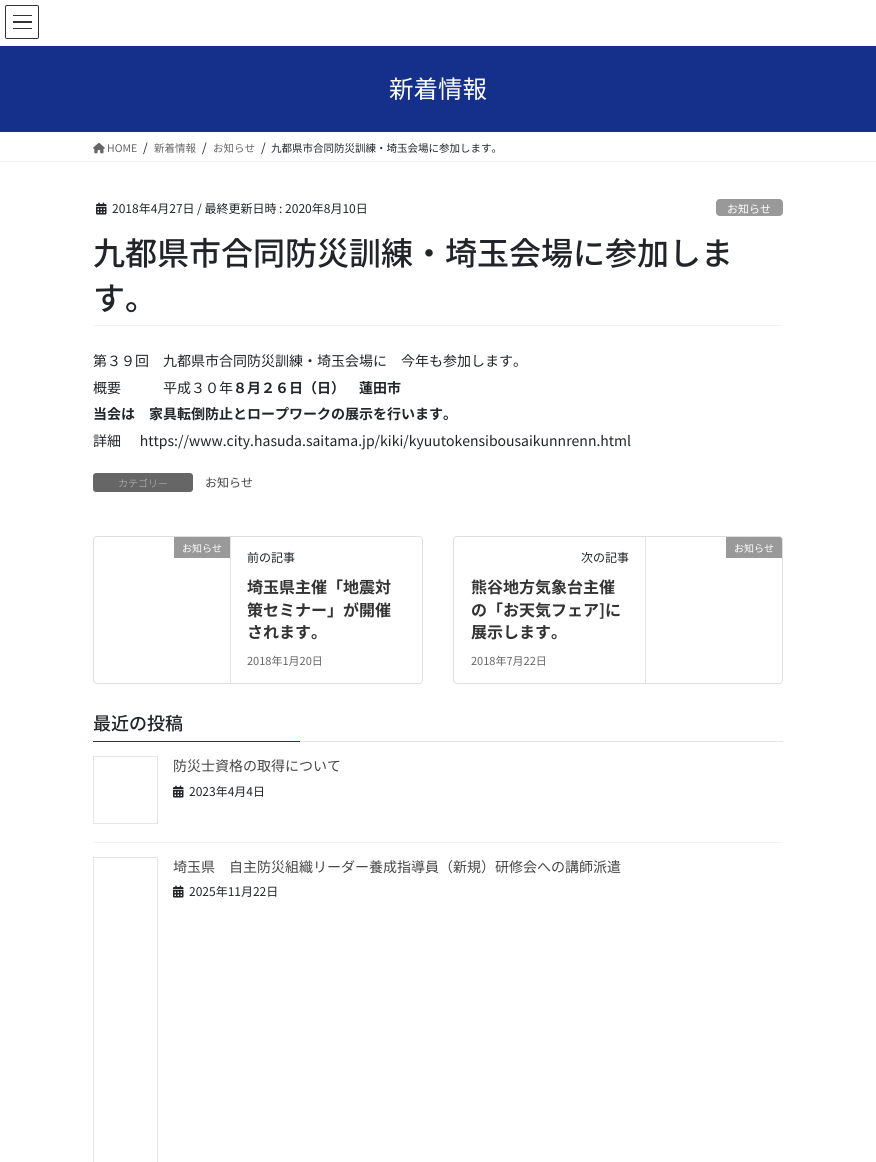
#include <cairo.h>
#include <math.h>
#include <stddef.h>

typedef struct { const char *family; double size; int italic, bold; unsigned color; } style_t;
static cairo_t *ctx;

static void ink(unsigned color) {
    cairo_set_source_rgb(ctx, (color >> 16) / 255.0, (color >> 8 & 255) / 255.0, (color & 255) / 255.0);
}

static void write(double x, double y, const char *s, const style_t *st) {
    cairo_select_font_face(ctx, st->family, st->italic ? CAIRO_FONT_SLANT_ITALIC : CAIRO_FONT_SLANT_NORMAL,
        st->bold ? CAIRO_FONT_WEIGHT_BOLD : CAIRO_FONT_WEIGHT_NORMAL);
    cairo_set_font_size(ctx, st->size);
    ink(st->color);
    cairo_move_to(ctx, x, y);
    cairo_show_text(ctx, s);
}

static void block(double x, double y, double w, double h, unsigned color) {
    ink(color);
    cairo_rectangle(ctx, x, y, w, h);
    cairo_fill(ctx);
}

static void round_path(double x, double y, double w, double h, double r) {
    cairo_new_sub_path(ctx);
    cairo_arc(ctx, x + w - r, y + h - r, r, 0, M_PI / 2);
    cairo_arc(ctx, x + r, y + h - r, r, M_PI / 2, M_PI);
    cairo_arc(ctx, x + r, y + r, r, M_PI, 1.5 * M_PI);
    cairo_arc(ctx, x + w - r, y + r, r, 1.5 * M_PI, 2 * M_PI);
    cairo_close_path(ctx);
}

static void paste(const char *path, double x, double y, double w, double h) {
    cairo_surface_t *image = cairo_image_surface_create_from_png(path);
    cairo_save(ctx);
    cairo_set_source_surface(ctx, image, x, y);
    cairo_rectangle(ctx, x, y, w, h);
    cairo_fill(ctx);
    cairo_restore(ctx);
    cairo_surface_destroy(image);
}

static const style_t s1 = {"Noto Sans JP", 24.5, 0, 0, 0xffffff};
static const style_t s2 = {"Noto Sans JP", 10.5, 0, 0, 0x666666};
static const style_t s3 = {"Noto Sans JP", 12, 0, 0, 0x212529};
static const style_t s4 = {"Noto Sans JP", 10.5, 0, 0, 0x212529};
static const style_t s5 = {"Noto Sans JP", 11, 0, 0, 0xffffff};
static const style_t s6 = {"Noto Sans JP Medium", 32, 0, 0, 0x212529};
static const style_t s7 = {"Noto Sans JP", 14, 0, 0, 0x212529};
static const style_t s8 = {"Noto Sans JP", 14, 0, 1, 0x212529};
static const style_t s9 = {"Noto Sans JP Thin", 10, 0, 0, 0xffffff};
static const style_t s10 = {"Noto Sans JP", 12, 0, 0, 0x464646};
static const style_t s11 = {"Noto Sans JP", 10, 0, 0, 0xffffff};
static const style_t s12 = {"Noto Sans JP", 16, 0, 1, 0x333333};
static const style_t s13 = {"Noto Sans JP", 11, 0, 0, 0x666666};
static const style_t s14 = {"Noto Sans JP Medium", 18, 0, 0, 0x212529};
static const style_t s15 = {"Noto Sans JP", 14, 0, 0, 0x464646};

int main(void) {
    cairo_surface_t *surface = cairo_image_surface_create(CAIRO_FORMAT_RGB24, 876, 1162);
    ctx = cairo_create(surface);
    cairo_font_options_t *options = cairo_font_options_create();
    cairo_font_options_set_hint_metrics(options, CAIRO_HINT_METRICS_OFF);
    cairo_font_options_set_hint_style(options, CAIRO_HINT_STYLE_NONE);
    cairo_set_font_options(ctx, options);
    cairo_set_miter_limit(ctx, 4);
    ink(0xffffff);
    cairo_paint(ctx);
    block(13, 15, 19, 1, 0x333333);
    block(13, 21, 19, 2, 0x333333);
    block(13, 28, 19, 1, 0x333333);
    round_path(5.5, 5.5, 33, 33, 1.5);
    cairo_set_line_width(ctx, 1);
    cairo_stroke(ctx);
    block(0, 46, 876, 86, 0x15308b);
    write(389, 98, "新着情報", &s1);
    block(0, 161, 876, 1, 0xf2f2f2);
    paste("pic1.png", 93, 142, 12, 12);
    write(107, 152, "HOME", &s2);
    write(143, 152, "/", &s3);
    write(154, 152, "新着情報", &s2);
    write(202, 152, "/", &s3);
    write(213, 152, "お知らせ", &s2);
    write(261, 152, "/", &s3);
    write(271, 152, "九都県市合同防災訓練・埼玉会場に参加します。", &s4);
    block(93, 325, 690, 1, 0xf2f2f2);
    paste("pic2.png", 96, 202, 11, 13);
    write(112, 213, "2018年4月27日", &s3);
    write(197, 213, "/ 最終更新日時 : 2020年8月10日", &s3);
    ink(0x999999);
    round_path(716, 199, 67, 17, 4);
    cairo_fill(ctx);
    write(727, 213, "お知らせ", &s5);
    write(93, 265, "九都県市合同防災訓練・埼玉会場に参加しま", &s6);
    write(93, 310, "す。", &s6);
    write(93, 366, "第３９回　九都県市合同防災訓練・埼玉会場に　今年も参加します。", &s7);
    write(93, 393, "概要　　　平成３０年", &s7);
    write(233, 393, "８月２６日（日）", &s8);
    write(359, 393, "蓮田市", &s8);
    write(93, 419, "当会は　家具転倒防止とロープワークの展示を行います。", &s8);
    write(93, 446, "詳細      https://www.city.hasuda.saitama.jp/kiki/kyuutokensibousaikunnrenn.html", &s7);
    ink(0x666666);
    round_path(93, 473, 100, 19, 3);
    cairo_fill(ctx);
    write(118, 487, "カテゴリー", &s9);
    write(205, 487, "お知らせ", &s10);
    round_path(93.5, 536.5, 329, 147, 3.5);
    ink(0xdfdfdf);
    cairo_stroke(ctx);
    block(230, 537, 1, 146, 0xe5e5e5);
    block(174, 537, 56, 21, 0x999999);
    write(182, 552, "お知らせ", &s11);
    write(247, 562, "前の記事", &s3);
    write(247, 593, "埼玉県主催「地震対", &s12);
    write(247, 616, "策セミナー」が開催", &s12);
    write(247, 638, "されます。", &s12);
    write(247, 665, "2018年1月20日", &s13);
    round_path(453.5, 536.5, 329, 147, 3.5);
    ink(0xdfdfdf);
    cairo_stroke(ctx);
    block(645, 537, 1, 146, 0xe5e5e5);
    ink(0x999999);
    cairo_new_path(ctx);
    cairo_move_to(ctx, 726, 537);
    cairo_line_to(ctx, 779.5, 537);
    cairo_curve_to(ctx, 781, 537, 782, 538, 782, 539.5);
    cairo_line_to(ctx, 782, 558);
    cairo_line_to(ctx, 726, 558);
    cairo_close_path(ctx);
    cairo_fill(ctx);
    write(734, 552, "お知らせ", &s11);
    write(581, 562, "次の記事", &s3);
    write(471, 593, "熊谷地方気象台主催", &s12);
    write(471, 616, "の「お天気フェア]に", &s12);
    write(471, 638, "展示します。", &s12);
    write(471, 665, "2018年7月22日", &s13);
    block(300, 741, 483, 1, 0xe6e6e6);
    write(93, 730, "最近の投稿", &s14);
    block(93, 741, 207, 1, 0x15308b);
    block(93, 842, 690, 1, 0xf2f2f2);
    cairo_rectangle(ctx, 93.5, 756.5, 64, 67);
    ink(0xe5e5e5);
    cairo_stroke(ctx);
    write(173, 771, "防災士資格の取得について", &s15);
    paste("pic2.png", 173, 785, 11, 13);
    write(189, 796, "2023年4月4日", &s3);
    cairo_rectangle(ctx, 93.5, 857.5, 64, 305);
    ink(0xe5e5e5);
    cairo_stroke(ctx);
    write(173, 872, "埼玉県　自主防災組織リーダー養成指導員（新規）研修会への講師派遣", &s15);
    paste("pic2.png", 173, 885, 11, 13);
    write(189, 896, "2025年11月22日", &s3);
    cairo_surface_write_to_png(surface, "screenshot.png");
    cairo_font_options_destroy(options);
    cairo_destroy(ctx);
    cairo_surface_destroy(surface);
    return 0;
}
